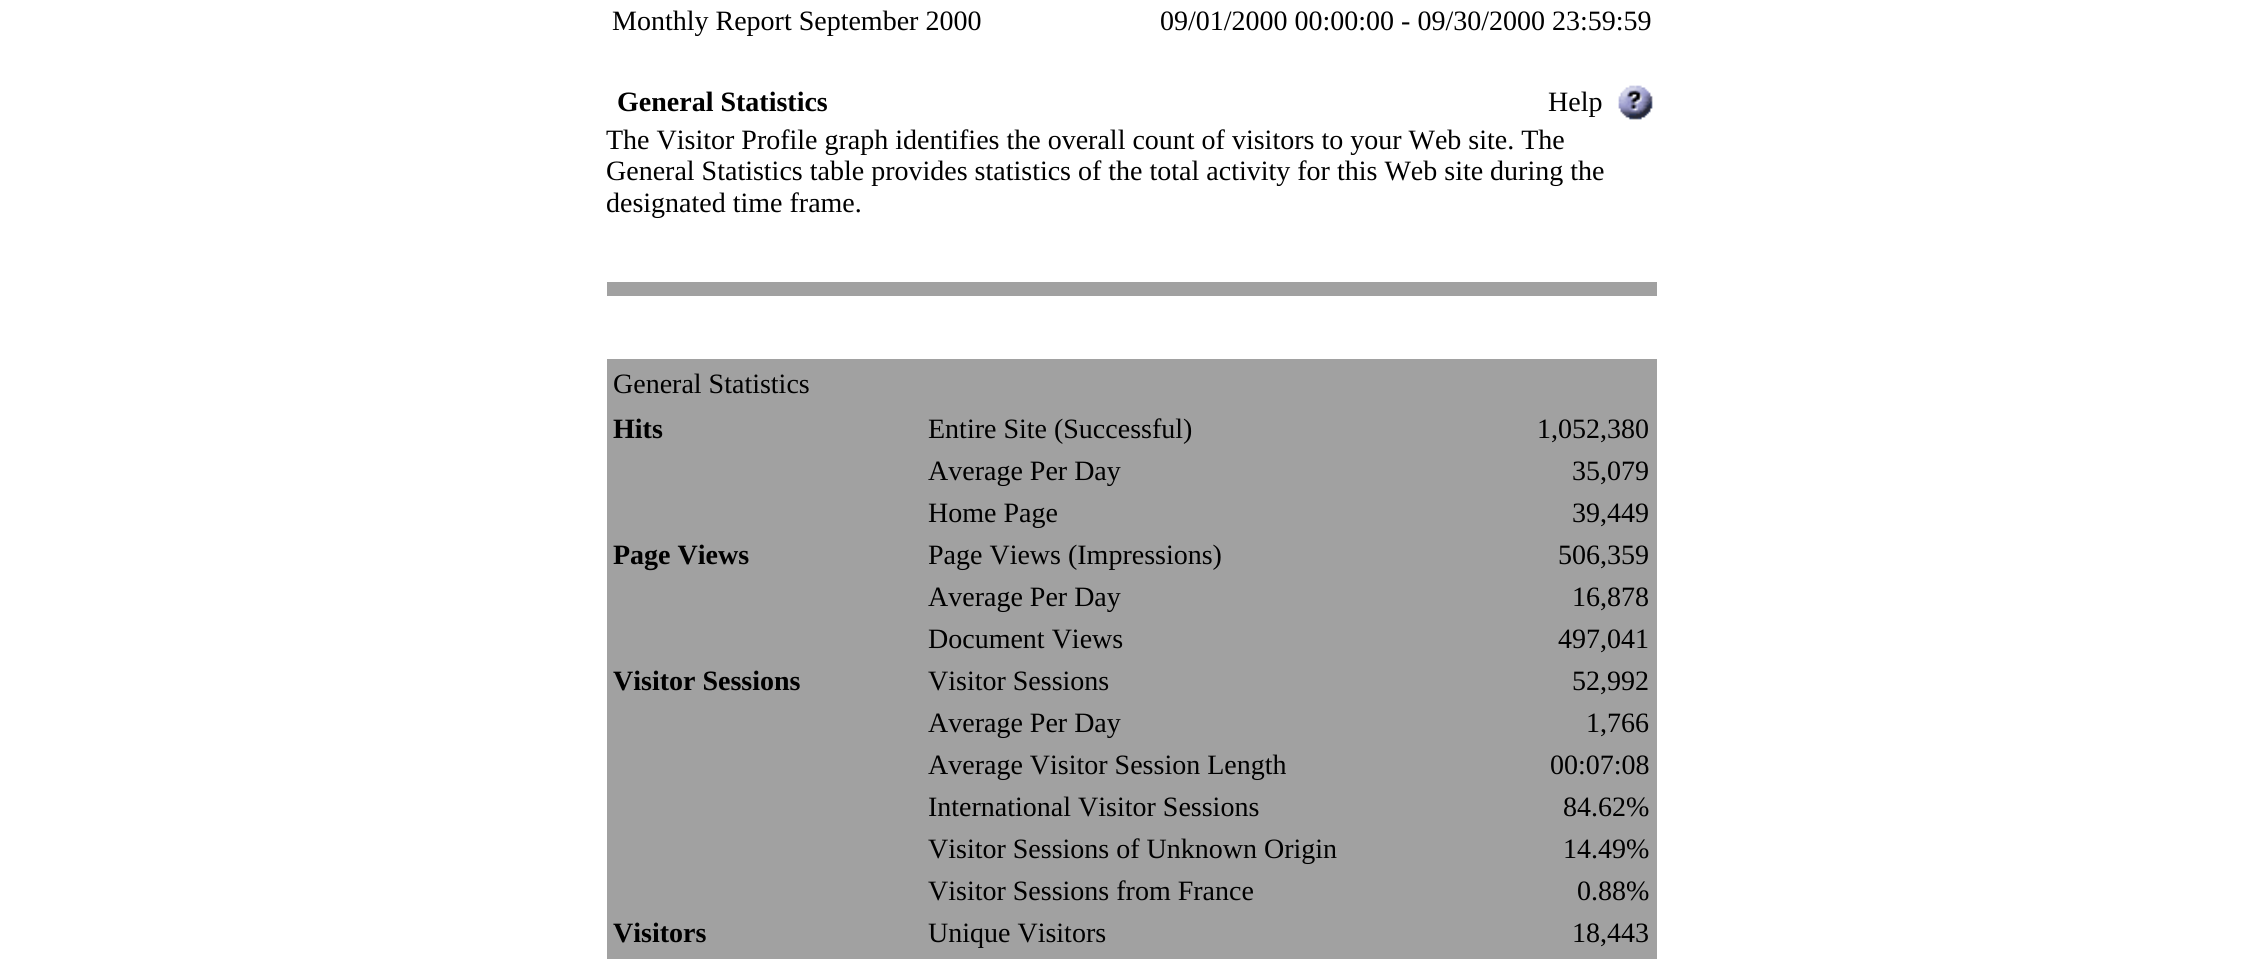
#include <cairo.h>
#include <math.h>
#include <stddef.h>

typedef struct { const char *family; double size; int italic, bold; unsigned color; } style_t;
static cairo_t *ctx;

static void ink(unsigned color) {
    cairo_set_source_rgb(ctx, (color >> 16) / 255.0, (color >> 8 & 255) / 255.0, (color & 255) / 255.0);
}

static void write(double x, double y, const char *s, const style_t *st) {
    cairo_select_font_face(ctx, st->family, st->italic ? CAIRO_FONT_SLANT_ITALIC : CAIRO_FONT_SLANT_NORMAL,
        st->bold ? CAIRO_FONT_WEIGHT_BOLD : CAIRO_FONT_WEIGHT_NORMAL);
    cairo_set_font_size(ctx, st->size);
    ink(st->color);
    cairo_move_to(ctx, x, y);
    cairo_show_text(ctx, s);
}

static void block(double x, double y, double w, double h, unsigned color) {
    ink(color);
    cairo_rectangle(ctx, x, y, w, h);
    cairo_fill(ctx);
}

static void paste(const char *path, double x, double y, double w, double h) {
    cairo_surface_t *image = cairo_image_surface_create_from_png(path);
    cairo_save(ctx);
    cairo_set_source_surface(ctx, image, x, y);
    cairo_rectangle(ctx, x, y, w, h);
    cairo_fill(ctx);
    cairo_restore(ctx);
    cairo_surface_destroy(image);
}

static const style_t s1 = {"Liberation Serif", 28, 0, 0, 0x000000};
static const style_t s2 = {"Liberation Serif", 28, 0, 1, 0x000000};

int main(void) {
    cairo_surface_t *surface = cairo_image_surface_create(CAIRO_FORMAT_RGB24, 2262, 959);
    ctx = cairo_create(surface);
    cairo_font_options_t *options = cairo_font_options_create();
    cairo_font_options_set_hint_metrics(options, CAIRO_HINT_METRICS_OFF);
    cairo_font_options_set_hint_style(options, CAIRO_HINT_STYLE_NONE);
    cairo_set_font_options(ctx, options);
    cairo_set_miter_limit(ctx, 4);
    ink(0xffffff);
    cairo_paint(ctx);
    write(612, 30, "Monthly Report September 2000", &s1);
    write(1160, 30, "09/01/2000 00:00:00 - 09/30/2000 23:59:59", &s1);
    write(617, 111, "General Statistics", &s2);
    write(1548, 111, "Help", &s1);
    paste("pic1.png", 1618, 85, 35, 35);
    write(606, 149, "The Visitor Profile graph identifies the overall count of visitors to your Web site. The", &s1);
    write(606, 180, "General Statistics table provides statistics of the total activity for this Web site during the", &s1);
    write(606, 212, "designated time frame.", &s1);
    block(607, 282, 1050, 14, 0xa1a1a1);
    block(607, 359, 1050, 600, 0xa1a1a1);
    write(613, 393, "General Statistics", &s1);
    write(613, 438, "Hits", &s2);
    write(928, 438, "Entire Site (Successful)", &s1);
    write(1537, 438, "1,052,380", &s1);
    write(928, 480, "Average Per Day", &s1);
    write(1572, 480, "35,079", &s1);
    write(928, 522, "Home Page", &s1);
    write(1572, 522, "39,449", &s1);
    write(613, 564, "Page Views", &s2);
    write(928, 564, "Page Views (Impressions)", &s1);
    write(1558, 564, "506,359", &s1);
    write(928, 606, "Average Per Day", &s1);
    write(1572, 606, "16,878", &s1);
    write(928, 648, "Document Views", &s1);
    write(1558, 648, "497,041", &s1);
    write(613, 690, "Visitor Sessions", &s2);
    write(928, 690, "Visitor Sessions", &s1);
    write(1572, 690, "52,992", &s1);
    write(928, 732, "Average Per Day", &s1);
    write(1586, 732, "1,766", &s1);
    write(928, 774, "Average Visitor Session Length", &s1);
    write(1550, 774, "00:07:08", &s1);
    write(928, 816, "International Visitor Sessions", &s1);
    write(1563, 816, "84.62%", &s1);
    write(928, 858, "Visitor Sessions of Unknown Origin", &s1);
    write(1563, 858, "14.49%", &s1);
    write(928, 900, "Visitor Sessions from France", &s1);
    write(1577, 900, "0.88%", &s1);
    write(613, 942, "Visitors", &s2);
    write(928, 942, "Unique Visitors", &s1);
    write(1572, 942, "18,443", &s1);
    cairo_surface_write_to_png(surface, "screenshot.png");
    cairo_font_options_destroy(options);
    cairo_destroy(ctx);
    cairo_surface_destroy(surface);
    return 0;
}
